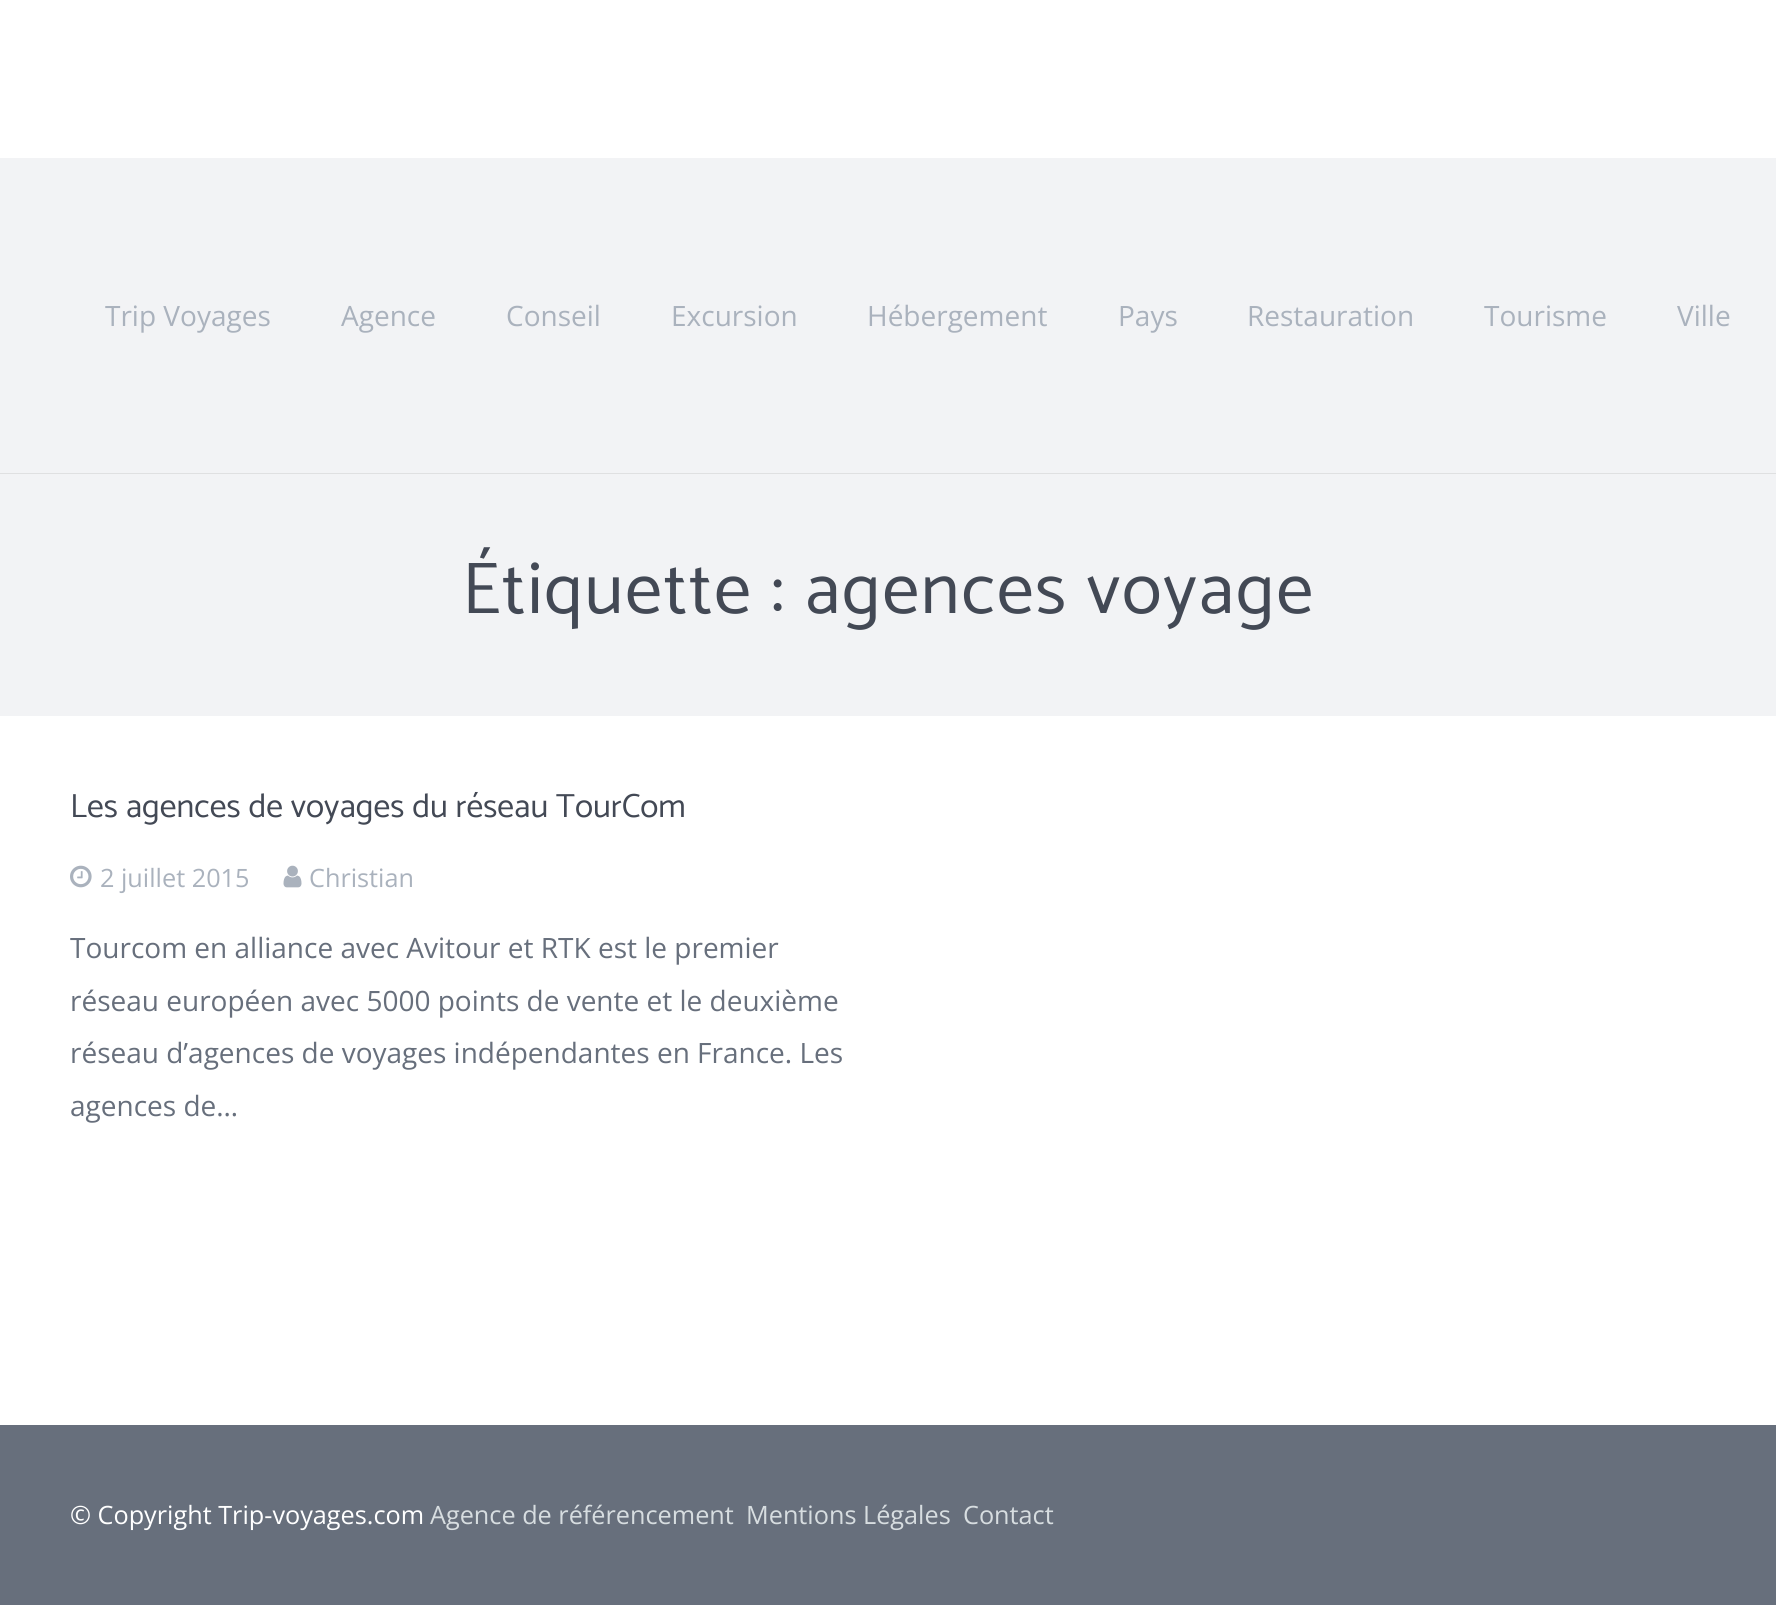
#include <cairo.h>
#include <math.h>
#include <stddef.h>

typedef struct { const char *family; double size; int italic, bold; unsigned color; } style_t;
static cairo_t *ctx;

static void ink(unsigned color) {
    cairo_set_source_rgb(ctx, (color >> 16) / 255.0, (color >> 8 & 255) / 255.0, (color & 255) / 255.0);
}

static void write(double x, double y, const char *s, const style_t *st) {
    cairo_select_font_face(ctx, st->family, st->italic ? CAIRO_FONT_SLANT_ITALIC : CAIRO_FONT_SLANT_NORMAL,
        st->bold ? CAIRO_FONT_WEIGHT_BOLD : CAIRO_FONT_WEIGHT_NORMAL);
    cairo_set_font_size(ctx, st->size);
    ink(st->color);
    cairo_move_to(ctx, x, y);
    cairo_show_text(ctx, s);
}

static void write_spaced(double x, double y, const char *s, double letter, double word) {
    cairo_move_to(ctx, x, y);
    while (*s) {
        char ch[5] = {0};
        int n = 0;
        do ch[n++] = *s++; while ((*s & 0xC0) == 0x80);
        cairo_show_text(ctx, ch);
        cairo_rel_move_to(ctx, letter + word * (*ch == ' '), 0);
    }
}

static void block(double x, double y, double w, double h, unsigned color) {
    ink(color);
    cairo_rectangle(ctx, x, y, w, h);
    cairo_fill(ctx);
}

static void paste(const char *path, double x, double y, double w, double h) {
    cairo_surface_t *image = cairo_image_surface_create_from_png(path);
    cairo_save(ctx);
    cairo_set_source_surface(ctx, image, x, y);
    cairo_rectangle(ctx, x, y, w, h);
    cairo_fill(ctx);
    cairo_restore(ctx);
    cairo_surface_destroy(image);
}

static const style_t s1 = {"Open Sans", 28, 0, 0, 0xaab2bd};
static const style_t s2 = {"Catamaran", 33.6, 0, 0, 0x434955};
static const style_t s3 = {"Open Sans", 25.25, 0, 0, 0xaab2bd};
static const style_t s4 = {"Open Sans", 28, 0, 0, 0x676f7c};
static const style_t s5 = {"Open Sans", 25.25, 0, 0, 0xffffff};
static const style_t s6 = {"Open Sans", 25.25, 0, 0, 0xd7dde0};

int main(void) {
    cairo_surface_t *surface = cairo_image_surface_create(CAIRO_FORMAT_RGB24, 1776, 1605);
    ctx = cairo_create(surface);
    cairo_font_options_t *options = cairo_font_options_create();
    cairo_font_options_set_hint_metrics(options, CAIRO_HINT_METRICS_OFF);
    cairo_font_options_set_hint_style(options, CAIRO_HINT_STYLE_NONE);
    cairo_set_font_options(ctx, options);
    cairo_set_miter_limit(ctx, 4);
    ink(0xffffff);
    cairo_paint(ctx);
    block(0, 473, 1776, 1, 0xdfe0e1);
    block(0, 158, 1776, 315, 0xf2f3f5);
    write(105, 326, "Trip Voyages", &s1);
    write(341, 326, "Agence", &s1);
    write(506, 326, "Conseil", &s1);
    write(671, 326, "Excursion", &s1);
    write(867, 326, "Hébergement", &s1);
    write(1118, 326, "Pays", &s1);
    write(1247, 326, "Restauration", &s1);
    write(1484, 326, "Tourisme", &s1);
    write(1677, 326, "Ville", &s1);
    block(0, 474, 1776, 242, 0xf2f3f5);
    cairo_select_font_face(ctx, "Catamaran", CAIRO_FONT_SLANT_NORMAL, CAIRO_FONT_WEIGHT_NORMAL);
    cairo_set_font_size(ctx, 73.5);
    ink(0x434955);
    write_spaced(462, 613, "Étiquette : agences voyage", 1.75, 0);
    write(70, 817, "Les agences de voyages du réseau TourCom", &s2);
    paste("pic1.png", 70, 865, 22, 23);
    write(100, 887, "2 juillet 2015", &s3);
    paste("pic2.png", 283, 865, 19, 23);
    write(309, 887, "Christian", &s3);
    write(70, 958, "Tourcom en alliance avec Avitour et RTK est le premier", &s4);
    write(70, 1011, "réseau européen avec 5000 points de vente et le deuxième", &s4);
    write(70, 1063, "réseau d’agences de voyages indépendantes en France. Les", &s4);
    write(70, 1116, "agences de…", &s4);
    block(0, 1425, 1776, 180, 0x676f7c);
    write(70, 1524, "© Copyright Trip-voyages.com", &s5);
    write(430, 1524, "Agence de référencement", &s6);
    write(746, 1524, "Mentions Légales", &s6);
    write(963, 1524, "Contact", &s6);
    cairo_surface_write_to_png(surface, "screenshot.png");
    cairo_font_options_destroy(options);
    cairo_destroy(ctx);
    cairo_surface_destroy(surface);
    return 0;
}
